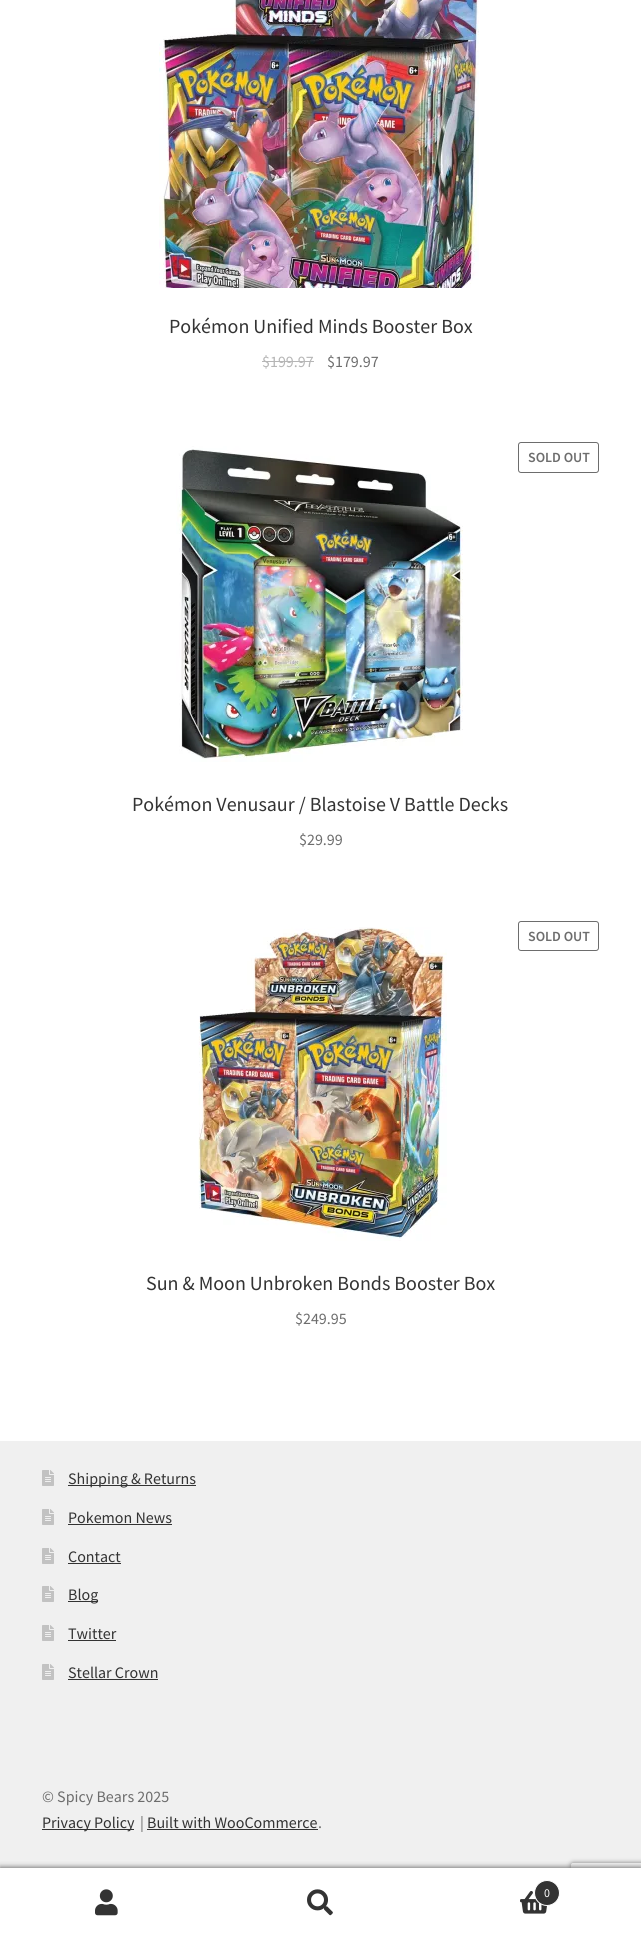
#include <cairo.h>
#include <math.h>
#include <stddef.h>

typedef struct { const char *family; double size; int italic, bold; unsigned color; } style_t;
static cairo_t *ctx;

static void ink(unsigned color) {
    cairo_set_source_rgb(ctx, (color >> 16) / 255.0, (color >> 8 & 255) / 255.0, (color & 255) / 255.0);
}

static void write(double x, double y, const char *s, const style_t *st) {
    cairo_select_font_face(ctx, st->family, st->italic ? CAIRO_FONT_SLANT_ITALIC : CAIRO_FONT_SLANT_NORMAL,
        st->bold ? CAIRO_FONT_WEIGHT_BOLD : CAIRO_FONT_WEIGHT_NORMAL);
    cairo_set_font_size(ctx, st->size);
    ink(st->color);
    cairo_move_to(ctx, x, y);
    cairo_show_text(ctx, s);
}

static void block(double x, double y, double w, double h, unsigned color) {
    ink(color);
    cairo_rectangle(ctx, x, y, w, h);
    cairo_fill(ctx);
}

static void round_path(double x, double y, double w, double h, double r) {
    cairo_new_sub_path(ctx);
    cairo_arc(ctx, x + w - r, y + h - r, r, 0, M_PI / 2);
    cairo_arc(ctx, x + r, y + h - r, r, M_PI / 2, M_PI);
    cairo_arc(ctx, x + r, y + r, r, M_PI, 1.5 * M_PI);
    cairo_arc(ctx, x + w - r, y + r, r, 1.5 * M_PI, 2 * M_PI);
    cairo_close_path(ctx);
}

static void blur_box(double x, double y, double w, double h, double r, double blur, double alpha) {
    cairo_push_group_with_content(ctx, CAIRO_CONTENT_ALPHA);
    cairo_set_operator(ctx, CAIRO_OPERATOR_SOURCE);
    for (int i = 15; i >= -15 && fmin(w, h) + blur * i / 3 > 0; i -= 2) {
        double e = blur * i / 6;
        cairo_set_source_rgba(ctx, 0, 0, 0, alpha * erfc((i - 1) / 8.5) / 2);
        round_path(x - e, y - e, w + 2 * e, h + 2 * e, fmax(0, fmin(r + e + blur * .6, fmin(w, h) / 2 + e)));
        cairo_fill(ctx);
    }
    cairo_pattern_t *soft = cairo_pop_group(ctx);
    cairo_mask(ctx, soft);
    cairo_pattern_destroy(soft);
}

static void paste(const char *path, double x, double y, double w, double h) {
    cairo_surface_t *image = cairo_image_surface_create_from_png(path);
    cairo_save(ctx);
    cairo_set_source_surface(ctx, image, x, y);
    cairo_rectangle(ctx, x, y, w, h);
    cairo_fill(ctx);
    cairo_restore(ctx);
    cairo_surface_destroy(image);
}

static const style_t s1 = {"Source Sans Pro", 20, 0, 0, 0x333333};
static const style_t s2 = {"Source Sans Pro", 16, 0, 0, 0xb6b6b6};
static const style_t s3 = {"Source Sans Pro", 16, 0, 0, 0x6d6d6d};
static const style_t s4 = {"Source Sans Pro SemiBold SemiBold", 14, 0, 0, 0x6d6d6d};
static const style_t s5 = {"Source Sans Pro", 16, 0, 0, 0x333333};
static const style_t s6 = {"Source Sans Pro", 12, 0, 0, 0xffffff};

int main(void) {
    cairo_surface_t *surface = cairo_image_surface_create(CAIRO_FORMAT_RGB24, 641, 1937);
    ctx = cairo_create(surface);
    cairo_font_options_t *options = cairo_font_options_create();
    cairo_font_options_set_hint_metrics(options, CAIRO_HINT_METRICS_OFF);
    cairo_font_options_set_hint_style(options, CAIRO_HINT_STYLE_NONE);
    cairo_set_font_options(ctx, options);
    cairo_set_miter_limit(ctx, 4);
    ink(0xffffff);
    cairo_paint(ctx);
    paste("pic1.png", 159, 0, 320, 288);
    write(169, 333, "Pokémon Unified Minds Booster Box", &s1);
    write(262, 367, "$199.97", &s2);
    block(262, 361, 52, 1, 0xb6b6b6);
    write(327, 367, "$179.97", &s3);
    paste("pic2.png", 176, 446, 287, 316);
    round_path(518.5, 442.5, 80, 30, 2.5);
    cairo_set_line_width(ctx, 1);
    cairo_stroke(ctx);
    write(528, 462, "SOLD OUT", &s4);
    write(132, 811, "Pokémon Venusaur / Blastoise V Battle Decks", &s1);
    write(299, 845, "$29.99", &s3);
    paste("pic3.png", 198, 927, 249, 314);
    round_path(518.5, 921.5, 80, 29, 2.5);
    cairo_stroke(ctx);
    write(528, 941, "SOLD OUT", &s4);
    write(146, 1290, "Sun & Moon Unbroken Bonds Booster Box", &s1);
    write(295, 1324, "$249.95", &s3);
    block(0, 1441, 641, 427, 0xf0f0f0);
    paste("pic4.png", 42, 1470, 12, 16);
    block(68, 1485, 128, 1, 0x333333);
    write(68, 1484, "Shipping & Returns", &s5);
    paste("pic4.png", 42, 1509, 12, 16);
    write(68, 1523, "Pokemon News", &s5);
    block(68, 1524, 104, 1, 0x333333);
    paste("pic4.png", 42, 1548, 12, 16);
    write(68, 1562, "Contact", &s5);
    block(68, 1563, 53, 1, 0x333333);
    paste("pic4.png", 42, 1586, 12, 16);
    block(68, 1601, 30, 1, 0x333333);
    write(68, 1600, "Blog", &s5);
    paste("pic4.png", 42, 1625, 12, 16);
    write(68, 1639, "Twitter", &s5);
    block(68, 1640, 48, 1, 0x333333);
    paste("pic4.png", 42, 1664, 12, 16);
    write(68, 1678, "Stellar Crown", &s5);
    block(68, 1679, 90, 1, 0x333333);
    write(42, 1802, "© Spicy Bears 2025", &s3);
    block(42, 1829, 92, 1, 0x333333);
    write(42, 1828, "Privacy Policy", &s5);
    write(140, 1828, "|", &s3);
    write(147, 1828, "Built with WooCommerce", &s5);
    block(147, 1829, 171, 1, 0x333333);
    write(318, 1828, ".", &s3);
    ink(0x000000);
    blur_box(0, 1868, 641, 69, 0, 3, 0.7);
    cairo_save(ctx);
    cairo_set_fill_rule(ctx, CAIRO_FILL_RULE_EVEN_ODD);
    cairo_new_path(ctx);
    cairo_move_to(ctx, 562, 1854);
    cairo_line_to(ctx, 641, 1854);
    cairo_line_to(ctx, 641, 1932);
    cairo_line_to(ctx, 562, 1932);
    cairo_close_path(ctx);
    cairo_move_to(ctx, 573, 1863);
    cairo_line_to(ctx, 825, 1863);
    cairo_curve_to(ctx, 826, 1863, 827, 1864, 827, 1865);
    cairo_line_to(ctx, 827, 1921);
    cairo_curve_to(ctx, 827, 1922, 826, 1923, 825, 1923);
    cairo_line_to(ctx, 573, 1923);
    cairo_curve_to(ctx, 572, 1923, 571, 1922, 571, 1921);
    cairo_line_to(ctx, 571, 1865);
    cairo_curve_to(ctx, 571, 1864, 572, 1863, 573, 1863);
    cairo_close_path(ctx);
    cairo_clip(ctx);
    ink(0x808080);
    blur_box(571, 1863, 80, 60, 2, 2.5, 1);
    cairo_restore(ctx);
    block(0, 1868, 641, 1, 0xffffff);
    block(0, 1869, 641, 68, 0xffffff);
    paste("pic5.png", 95, 1889, 23, 27);
    paste("pic6.png", 307, 1889, 26, 27);
    paste("pic7.png", 520, 1891, 28, 23);
    ink(0x333333);
    cairo_arc(ctx, 547, 1893, 12.5, 0, 2 * M_PI);
    cairo_fill_preserve(ctx);
    ink(0xffffff);
    cairo_stroke(ctx);
    write(544, 1897, "0", &s6);
    cairo_surface_write_to_png(surface, "screenshot.png");
    cairo_font_options_destroy(options);
    cairo_destroy(ctx);
    cairo_surface_destroy(surface);
    return 0;
}
